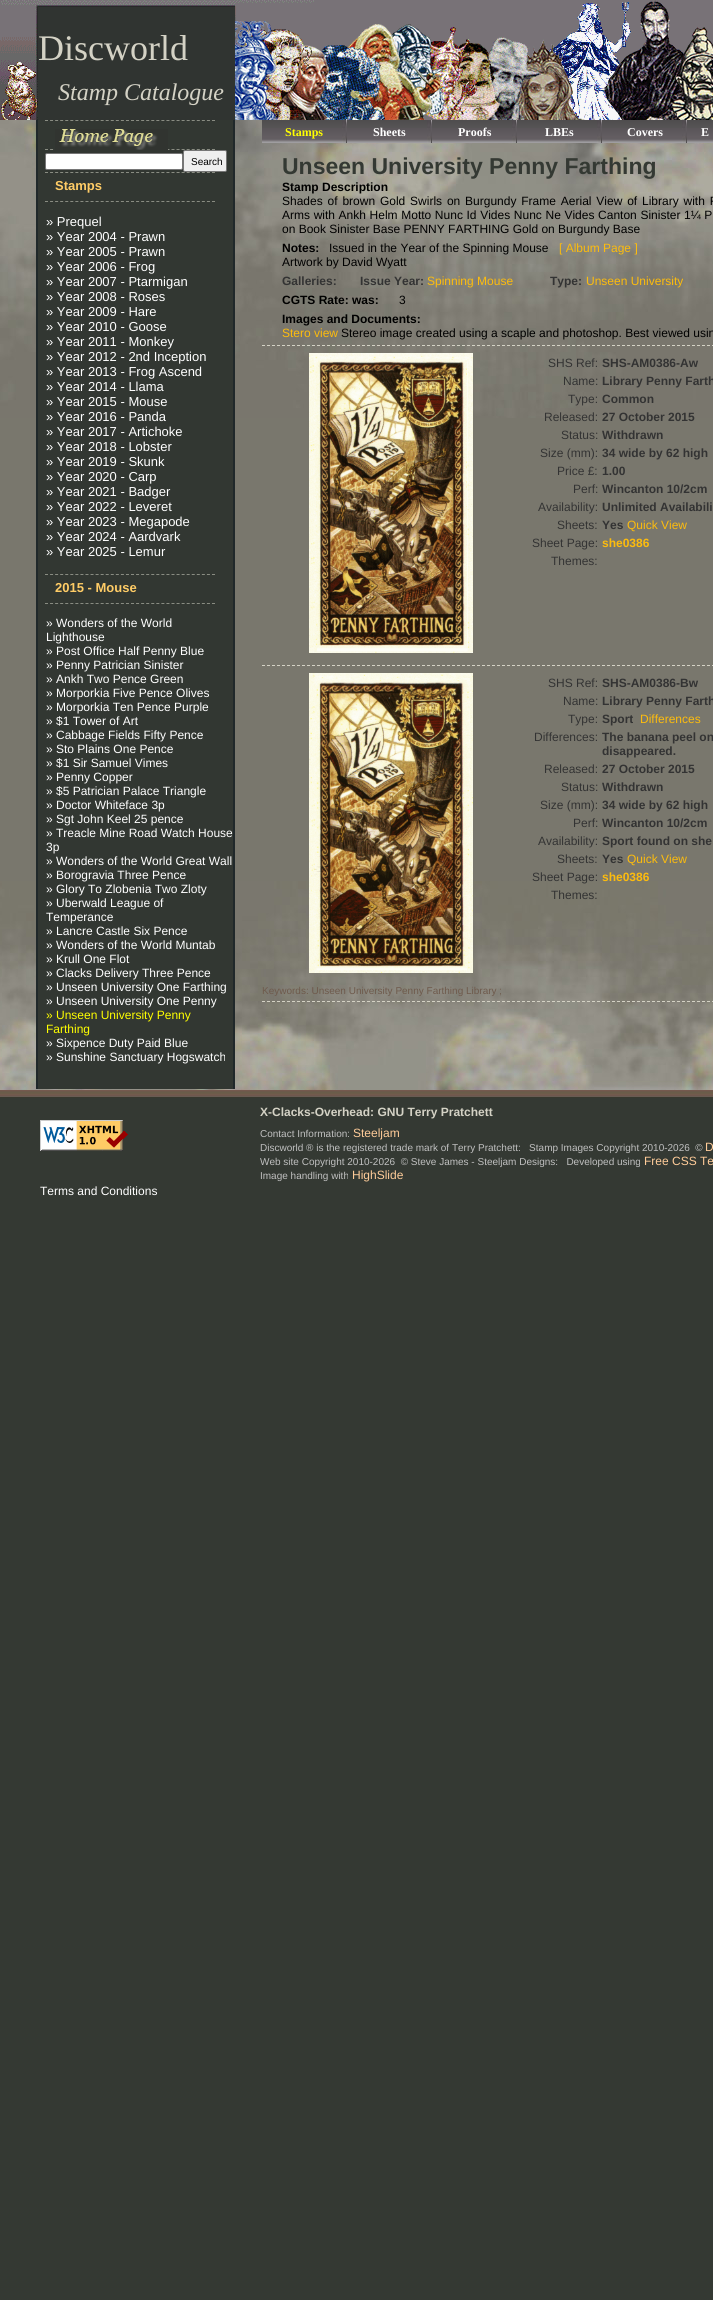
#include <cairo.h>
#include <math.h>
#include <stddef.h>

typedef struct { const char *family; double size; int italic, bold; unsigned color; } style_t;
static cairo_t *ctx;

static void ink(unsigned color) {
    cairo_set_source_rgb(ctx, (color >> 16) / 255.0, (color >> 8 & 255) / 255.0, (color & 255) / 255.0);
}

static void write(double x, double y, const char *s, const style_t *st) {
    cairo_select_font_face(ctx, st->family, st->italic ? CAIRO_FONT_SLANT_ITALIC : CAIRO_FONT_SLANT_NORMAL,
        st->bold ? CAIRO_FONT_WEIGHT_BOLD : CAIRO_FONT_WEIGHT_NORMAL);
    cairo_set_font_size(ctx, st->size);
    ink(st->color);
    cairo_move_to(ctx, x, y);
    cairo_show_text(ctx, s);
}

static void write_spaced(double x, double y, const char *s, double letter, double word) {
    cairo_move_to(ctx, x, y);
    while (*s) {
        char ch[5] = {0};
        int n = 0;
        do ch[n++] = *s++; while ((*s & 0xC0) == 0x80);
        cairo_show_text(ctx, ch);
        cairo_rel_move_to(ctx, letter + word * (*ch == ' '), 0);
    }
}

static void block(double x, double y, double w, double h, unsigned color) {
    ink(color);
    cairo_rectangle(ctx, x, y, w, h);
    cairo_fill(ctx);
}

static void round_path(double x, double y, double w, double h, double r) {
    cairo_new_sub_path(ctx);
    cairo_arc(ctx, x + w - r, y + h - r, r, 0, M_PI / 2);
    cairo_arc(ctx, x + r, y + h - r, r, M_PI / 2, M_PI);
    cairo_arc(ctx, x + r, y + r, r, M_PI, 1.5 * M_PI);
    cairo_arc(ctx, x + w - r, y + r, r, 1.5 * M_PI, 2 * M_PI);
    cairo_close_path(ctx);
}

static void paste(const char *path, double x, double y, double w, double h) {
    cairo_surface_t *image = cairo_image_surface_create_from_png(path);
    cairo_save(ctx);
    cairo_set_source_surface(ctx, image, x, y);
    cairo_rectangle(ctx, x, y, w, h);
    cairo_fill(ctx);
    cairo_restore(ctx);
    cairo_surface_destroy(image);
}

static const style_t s1 = {"Liberation Serif", 36, 0, 0, 0xd4d2c5};
static const style_t s2 = {"Liberation Serif", 24, 1, 0, 0xd4d2c5};
static const style_t s3 = {"Liberation Sans", 10, 0, 0, 0x000000};
static const style_t s4 = {"Liberation Sans", 13, 0, 1, 0xffcc66};
static const style_t s5 = {"Liberation Sans", 13, 0, 0, 0xffffff};
static const style_t s6 = {"Liberation Sans", 12, 0, 0, 0xffffff};
static const style_t s7 = {"Liberation Sans", 12, 0, 0, 0xffff00};
static const style_t s8 = {"Liberation Serif", 12, 0, 1, 0xffff00};
static const style_t s9 = {"Liberation Serif", 12, 0, 1, 0xffffff};
static const style_t s10 = {"Liberation Sans", 23, 0, 1, 0x343933};
static const style_t s11 = {"Liberation Sans", 12, 0, 1, 0x000000};
static const style_t s12 = {"Liberation Sans", 12, 0, 0, 0x000000};
static const style_t s13 = {"Liberation Sans", 12, 0, 0, 0xfdbc0d};
static const style_t s14 = {"Liberation Sans", 12, 0, 1, 0x333333};
static const style_t s15 = {"Liberation Sans", 12, 0, 0, 0x333333};
static const style_t s16 = {"Liberation Sans", 12, 0, 1, 0xfdbc0d};
static const style_t s17 = {"Liberation Sans", 10, 0, 0, 0x6e5a4c};
static const style_t s18 = {"Liberation Sans", 12, 0, 1, 0xd4d2c5};
static const style_t s19 = {"Liberation Sans", 10, 0, 0, 0xc0c0c0};
static const style_t s20 = {"Liberation Sans", 12, 0, 0, 0xffcc99};

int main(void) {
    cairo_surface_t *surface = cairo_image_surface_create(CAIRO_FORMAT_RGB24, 713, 2300);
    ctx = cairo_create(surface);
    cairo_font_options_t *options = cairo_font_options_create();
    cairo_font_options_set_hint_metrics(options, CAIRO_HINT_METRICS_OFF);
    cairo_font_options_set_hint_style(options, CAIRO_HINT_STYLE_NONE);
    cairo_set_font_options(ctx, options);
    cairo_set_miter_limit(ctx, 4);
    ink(0x343933);
    cairo_paint(ctx);
    paste("pic1.png", 0, 0, 713, 120);
    write(38, 60, "Discworld", &s1);
    write(58, 100, "Stamp Catalogue", &s2);
    block(0, 418, 713, 463, 0x79776d);
    paste("pic2.png", 0, 120, 713, 298);
    paste("pic3.png", 0, 881, 713, 209);
    block(38, 120, 195, 969, 0x323732);
    block(233, 120, 2, 969, 0x20282a);
    block(36, 120, 2, 969, 0x20282a);
    cairo_new_path(ctx);
    cairo_move_to(ctx, 45, 120.5);
    cairo_line_to(ctx, 215, 120.5);
    ink(0x898c82);
    cairo_set_line_width(ctx, 1);
    cairo_set_dash(ctx, (double[]){3, 2.06}, 2, 0);
    cairo_stroke(ctx);
    cairo_new_path(ctx);
    cairo_move_to(ctx, 45, 149.5);
    cairo_line_to(ctx, 215, 149.5);
    cairo_stroke(ctx);
    paste("pic4.png", 55, 129, 113, 21);
    ink(0xffffff);
    round_path(45.5, 153.5, 137, 16, 1.5);
    cairo_fill_preserve(ctx);
    ink(0x767676);
    cairo_set_dash(ctx, NULL, 0, 0);
    cairo_stroke(ctx);
    ink(0xefefef);
    round_path(183.5, 150.5, 43, 21, 1.5);
    cairo_fill_preserve(ctx);
    ink(0x767676);
    cairo_stroke(ctx);
    write(191, 165, "Search", &s3);
    cairo_new_path(ctx);
    cairo_move_to(ctx, 45, 172.5);
    cairo_line_to(ctx, 215, 172.5);
    ink(0x898c82);
    cairo_set_dash(ctx, (double[]){3, 2.06}, 2, 0);
    cairo_stroke(ctx);
    cairo_new_path(ctx);
    cairo_move_to(ctx, 45, 201.5);
    cairo_line_to(ctx, 215, 201.5);
    cairo_stroke(ctx);
    write(55, 190, "Stamps", &s4);
    write(46, 226, "» Prequel", &s5);
    write(46, 241, "» Year 2004 - Prawn", &s5);
    write(46, 256, "» Year 2005 - Prawn", &s5);
    write(46, 271, "» Year 2006 - Frog", &s5);
    write(46, 286, "» Year 2007 - Ptarmigan", &s5);
    write(46, 301, "» Year 2008 - Roses", &s5);
    write(46, 316, "» Year 2009 - Hare", &s5);
    write(46, 331, "» Year 2010 - Goose", &s5);
    write(46, 346, "» Year 2011 - Monkey", &s5);
    write(46, 361, "» Year 2012 - 2nd Inception", &s5);
    write(46, 376, "» Year 2013 - Frog Ascend", &s5);
    write(46, 391, "» Year 2014 - Llama", &s5);
    write(46, 406, "» Year 2015 - Mouse", &s5);
    write(46, 421, "» Year 2016 - Panda", &s5);
    write(46, 436, "» Year 2017 - Artichoke", &s5);
    write(46, 451, "» Year 2018 - Lobster", &s5);
    write(46, 466, "» Year 2019 - Skunk", &s5);
    write(46, 481, "» Year 2020 - Carp", &s5);
    write(46, 496, "» Year 2021 - Badger", &s5);
    write(46, 511, "» Year 2022 - Leveret", &s5);
    write(46, 526, "» Year 2023 - Megapode", &s5);
    write(46, 541, "» Year 2024 - Aardvark", &s5);
    write(46, 556, "» Year 2025 - Lemur", &s5);
    cairo_new_path(ctx);
    cairo_move_to(ctx, 45, 574.5);
    cairo_line_to(ctx, 215, 574.5);
    ink(0x898c82);
    cairo_stroke(ctx);
    cairo_new_path(ctx);
    cairo_move_to(ctx, 45, 603.5);
    cairo_line_to(ctx, 215, 603.5);
    cairo_stroke(ctx);
    write(55, 592, "2015 - Mouse", &s4);
    write(46, 627, "» Wonders of the World", &s6);
    write(46, 641, "Lighthouse", &s6);
    write(46, 655, "» Post Office Half Penny Blue", &s6);
    write(46, 669, "» Penny Patrician Sinister", &s6);
    write(46, 683, "» Ankh Two Pence Green", &s6);
    write(46, 697, "» Morporkia Five Pence Olives", &s6);
    write(46, 711, "» Morporkia Ten Pence Purple", &s6);
    write(46, 725, "» $1 Tower of Art", &s6);
    write(46, 739, "» Cabbage Fields Fifty Pence", &s6);
    write(46, 753, "» Sto Plains One Pence", &s6);
    write(46, 767, "» $1 Sir Samuel Vimes", &s6);
    write(46, 781, "» Penny Copper", &s6);
    write(46, 795, "» $5 Patrician Palace Triangle", &s6);
    write(46, 809, "» Doctor Whiteface 3p", &s6);
    write(46, 823, "» Sgt John Keel 25 pence", &s6);
    write(46, 837, "» Treacle Mine Road Watch House", &s6);
    write(46, 851, "3p", &s6);
    write(46, 865, "» Wonders of the World Great Wall", &s6);
    write(46, 879, "» Borogravia Three Pence", &s6);
    write(46, 893, "» Glory To Zlobenia Two Zloty", &s6);
    write(46, 907, "» Uberwald League of", &s6);
    write(46, 921, "Temperance", &s6);
    write(46, 935, "» Lancre Castle Six Pence", &s6);
    write(46, 949, "» Wonders of the World Muntab", &s6);
    write(46, 963, "» Krull One Flot", &s6);
    write(46, 977, "» Clacks Delivery Three Pence", &s6);
    write(46, 991, "» Unseen University One Farthing", &s6);
    write(46, 1005, "» Unseen University One Penny", &s6);
    write(46, 1019, "» Unseen University Penny", &s7);
    write(46, 1033, "Farthing", &s7);
    write(46, 1047, "» Sixpence Duty Paid Blue", &s6);
    write(46, 1061, "» Sunshine Sanctuary Hogswatch", &s6);
    paste("pic5.png", 262, 120, 85, 23);
    write(285, 136, "Stamps", &s8);
    paste("pic5.png", 347, 120, 85, 23);
    write(373, 136, "Sheets", &s9);
    paste("pic5.png", 432, 120, 85, 23);
    write(458, 136, "Proofs", &s9);
    paste("pic5.png", 517, 120, 85, 23);
    write(545, 136, "LBEs", &s9);
    paste("pic5.png", 602, 120, 85, 23);
    write(627, 136, "Covers", &s9);
    paste("pic6.png", 687, 120, 26, 23);
    write(701, 136, "E", &s9);
    write(282, 174, "Unseen University Penny Farthing", &s10);
    write(282, 191, "Stamp Description", &s11);
    cairo_select_font_face(ctx, "Liberation Sans", CAIRO_FONT_SLANT_NORMAL, CAIRO_FONT_WEIGHT_NORMAL);
    write_spaced(282, 205, "Shades of brown Gold Swirls on Burgundy Frame Aerial View of Library with F", 0, 1.5);
    write_spaced(282, 219, "Arms with Ankh Helm Motto Nunc Id Vides Nunc Ne Vides Canton Sinister 1¼ P", 0, 0.3);
    write(282, 233, "on Book Sinister Base PENNY FARTHING Gold on Burgundy Base", &s12);
    write(282, 252, "Notes:", &s11);
    write(329, 252, "Issued in the Year of the Spinning Mouse", &s12);
    write(559, 252, "[ Album Page ]", &s13);
    write(282, 266, "Artwork by David Wyatt", &s12);
    write(282, 285, "Galleries:", &s14);
    write(360, 285, "Issue Year:", &s14);
    write(427, 285, "Spinning Mouse", &s13);
    write(550, 285, "Type:", &s14);
    write(586, 285, "Unseen University", &s13);
    write(282, 304, "CGTS Rate: was:", &s11);
    write(399, 304, "3", &s12);
    write(282, 323, "Images and Documents:", &s11);
    write(282, 337, "Stero view", &s13);
    write(341, 337, "Stereo image created using a scaple and photoshop. Best viewed usin", &s12);
    cairo_new_path(ctx);
    cairo_move_to(ctx, 262, 345.5);
    cairo_line_to(ctx, 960, 345.5);
    ink(0xd4d2c5);
    cairo_set_dash(ctx, (double[]){3, 2}, 2, 0);
    cairo_stroke(ctx);
    paste("pic7.png", 309, 353, 164, 300);
    write(548, 367, "SHS Ref:", &s15);
    write(602, 367, "SHS-AM0386-Aw", &s14);
    write(563, 385, "Name:", &s15);
    write(602, 385, "Library Penny Farth", &s14);
    write(568, 403, "Type:", &s15);
    write(602, 403, "Common", &s14);
    write(544, 421, "Released:", &s15);
    write(602, 421, "27 October 2015", &s14);
    write(561, 439, "Status:", &s15);
    write(602, 439, "Withdrawn", &s14);
    write(540, 457, "Size (mm):", &s15);
    write(602, 457, "34 wide by 62 high", &s14);
    write(557, 475, "Price £:", &s15);
    write(602, 475, "1.00", &s14);
    write(573, 493, "Perf:", &s15);
    write(602, 493, "Wincanton 10/2cm", &s14);
    write(538, 511, "Availability:", &s15);
    write(602, 511, "Unlimited Availabili", &s14);
    write(557, 529, "Sheets:", &s15);
    write(602, 529, "Yes", &s14);
    write(627, 529, "Quick View", &s13);
    write(532, 547, "Sheet Page:", &s15);
    write(602, 547, "she0386", &s16);
    write(551, 565, "Themes:", &s15);
    cairo_new_path(ctx);
    cairo_move_to(ctx, 262, 665.5);
    cairo_line_to(ctx, 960, 665.5);
    ink(0xd4d2c5);
    cairo_stroke(ctx);
    paste("pic8.png", 309, 673, 164, 300);
    write(548, 687, "SHS Ref:", &s15);
    write(602, 687, "SHS-AM0386-Bw", &s14);
    write(563, 705, "Name:", &s15);
    write(602, 705, "Library Penny Farth", &s14);
    write(568, 723, "Type:", &s15);
    write(602, 723, "Sport", &s14);
    write(640, 723, "Differences", &s13);
    write(534, 741, "Differences:", &s15);
    write(602, 741, "The banana peel on", &s14);
    write(602, 755, "disappeared.", &s14);
    write(544, 773, "Released:", &s15);
    write(602, 773, "27 October 2015", &s14);
    write(561, 791, "Status:", &s15);
    write(602, 791, "Withdrawn", &s14);
    write(540, 809, "Size (mm):", &s15);
    write(602, 809, "34 wide by 62 high", &s14);
    write(573, 827, "Perf:", &s15);
    write(602, 827, "Wincanton 10/2cm", &s14);
    write(538, 845, "Availability:", &s15);
    write(602, 845, "Sport found on she", &s14);
    write(557, 863, "Sheets:", &s15);
    write(602, 863, "Yes", &s14);
    write(627, 863, "Quick View", &s13);
    write(532, 881, "Sheet Page:", &s15);
    write(602, 881, "she0386", &s16);
    write(551, 899, "Themes:", &s15);
    write(262, 994, "Keywords: Unseen University Penny Farthing Library ;", &s17);
    cairo_new_path(ctx);
    cairo_move_to(ctx, 262, 1001.5);
    cairo_line_to(ctx, 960, 1001.5);
    ink(0xd4d2c5);
    cairo_stroke(ctx);
    paste("pic9.png", 0, 1090, 713, 8);
    write(260, 1116, "X-Clacks-Overhead: GNU Terry Pratchett", &s18);
    write(260, 1137, "Contact Information:", &s19);
    write(353, 1137, "Steeljam", &s20);
    write(260, 1151, "Discworld ® is the registered trade mark of Terry Pratchett:   Stamp Images Copyright 2010-2026  ©", &s19);
    write(705, 1151, "D", &s20);
    write(260, 1165, "Web site Copyright 2010-2026  © Steve James - Steeljam Designs:   Developed using", &s19);
    write(644, 1165, "Free CSS Te", &s20);
    write(260, 1179, "Image handling with", &s19);
    write(352, 1179, "HighSlide", &s20);
    paste("pic10.png", 40, 1120, 88, 31);
    write(40, 1195, "Terms and Conditions", &s6);
    cairo_surface_write_to_png(surface, "screenshot.png");
    cairo_font_options_destroy(options);
    cairo_destroy(ctx);
    cairo_surface_destroy(surface);
    return 0;
}
